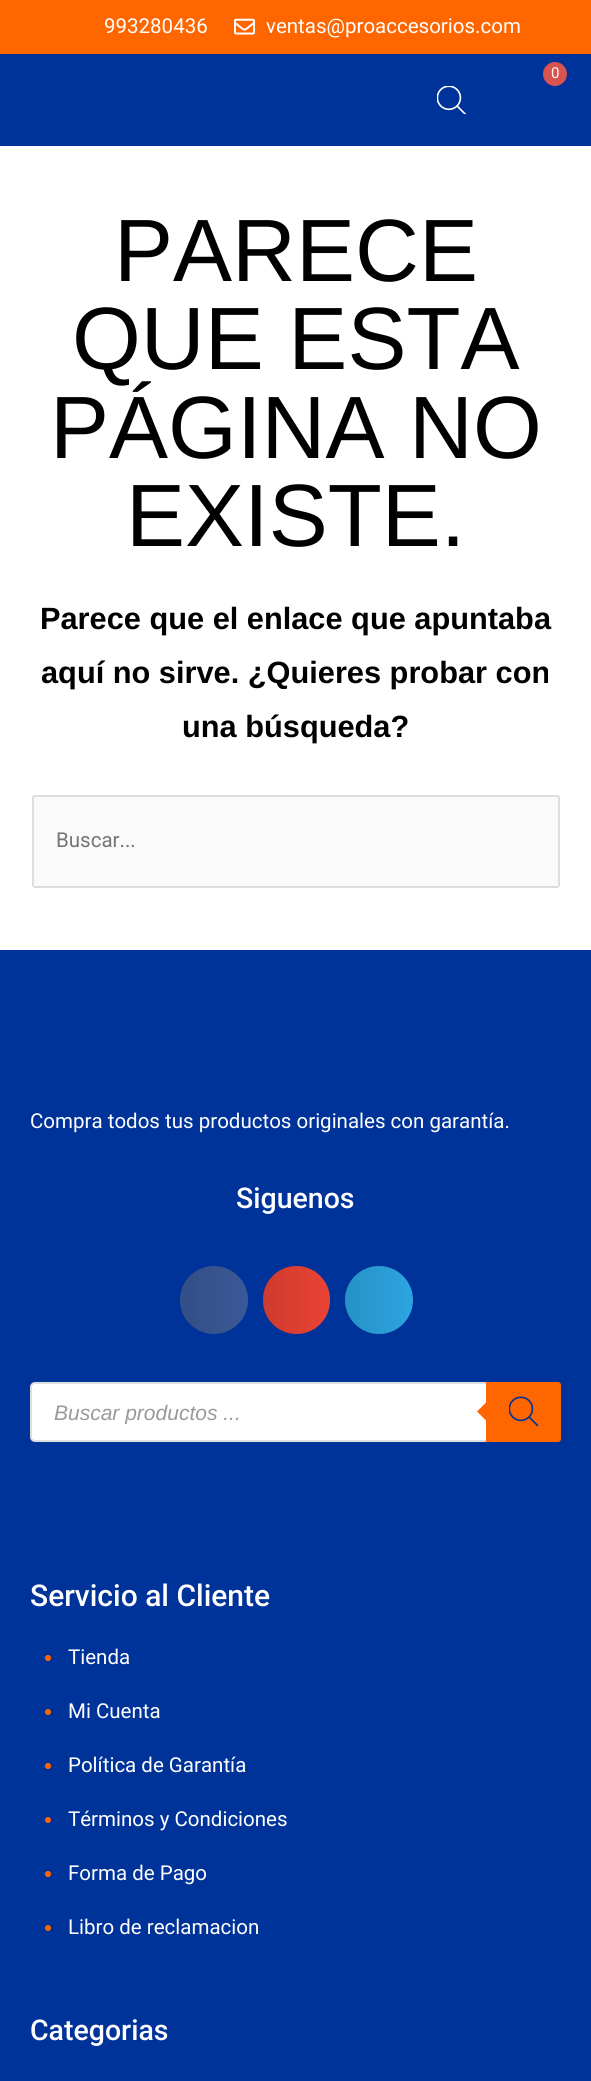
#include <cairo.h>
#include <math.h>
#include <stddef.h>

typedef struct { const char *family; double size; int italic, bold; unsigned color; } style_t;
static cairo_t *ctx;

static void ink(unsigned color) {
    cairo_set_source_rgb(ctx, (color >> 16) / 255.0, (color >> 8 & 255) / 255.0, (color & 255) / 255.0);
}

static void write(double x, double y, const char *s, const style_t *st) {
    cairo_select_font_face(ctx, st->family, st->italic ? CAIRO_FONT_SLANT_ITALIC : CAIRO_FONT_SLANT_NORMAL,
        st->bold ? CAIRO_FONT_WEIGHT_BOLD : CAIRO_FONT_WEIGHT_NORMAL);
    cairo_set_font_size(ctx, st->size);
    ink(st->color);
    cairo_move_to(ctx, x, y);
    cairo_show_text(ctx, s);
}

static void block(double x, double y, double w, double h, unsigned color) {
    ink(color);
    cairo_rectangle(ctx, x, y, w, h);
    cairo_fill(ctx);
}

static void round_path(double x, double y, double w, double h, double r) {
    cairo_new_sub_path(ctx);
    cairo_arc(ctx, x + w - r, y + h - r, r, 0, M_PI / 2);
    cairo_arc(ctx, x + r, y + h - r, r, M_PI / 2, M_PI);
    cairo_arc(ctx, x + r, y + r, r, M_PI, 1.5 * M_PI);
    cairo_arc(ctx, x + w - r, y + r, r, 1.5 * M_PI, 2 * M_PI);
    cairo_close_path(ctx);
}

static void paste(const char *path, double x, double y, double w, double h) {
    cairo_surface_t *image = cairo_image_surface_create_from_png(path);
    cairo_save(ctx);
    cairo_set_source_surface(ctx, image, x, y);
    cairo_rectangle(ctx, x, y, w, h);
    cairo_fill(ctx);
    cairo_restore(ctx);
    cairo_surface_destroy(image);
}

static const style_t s1 = {"Roboto", 20.5, 0, 0, 0xffffff};
static const style_t s2 = {"Roboto", 15, 0, 0, 0xffffff};
static const style_t s3 = {"Liberation Sans", 88.5, 0, 0, 0x000000};
static const style_t s4 = {"Liberation Sans", 30.75, 0, 1, 0x000000};
static const style_t s5 = {"Roboto", 20.5, 0, 0, 0x757575};
static const style_t s6 = {"Roboto Medium", 28.5, 0, 0, 0xffffff};
static const style_t s7 = {"Liberation Sans", 21, 1, 0, 0x999999};
static const style_t s8 = {"Roboto Medium", 30, 0, 0, 0xffffff};

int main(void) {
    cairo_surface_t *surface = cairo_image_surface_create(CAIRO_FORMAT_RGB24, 591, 2081);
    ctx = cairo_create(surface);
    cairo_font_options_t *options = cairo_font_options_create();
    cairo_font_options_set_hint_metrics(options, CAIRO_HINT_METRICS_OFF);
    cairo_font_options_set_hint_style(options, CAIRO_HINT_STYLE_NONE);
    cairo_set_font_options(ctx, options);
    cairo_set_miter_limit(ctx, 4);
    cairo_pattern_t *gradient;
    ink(0xffffff);
    cairo_paint(ctx);
    block(0, 0, 591, 54, 0xff6600);
    write(104, 33, "993280436", &s1);
    paste("pic1.png", 234, 18, 21, 17);
    write(266, 33, "ventas@proaccesorios.com", &s1);
    block(0, 54, 591, 92, 0x003399);
    ink(0xd9534f);
    cairo_new_path(ctx);
    cairo_arc(ctx, 555, 74, 12, 0, 2 * M_PI);
    cairo_fill(ctx);
    write(551, 78, "0", &s2);
    paste("pic2.png", 437, 86, 30, 28);
    write(114, 281, "PARECE", &s3);
    write(72, 369, "QUE ESTA", &s3);
    write(50, 458, "PÁGINA NO", &s3);
    write(126, 546, "EXISTE.", &s3);
    write(40, 629, "Parece que el enlace que apuntaba", &s4);
    write(41, 683, "aquí no sirve. ¿Quieres probar con", &s4);
    write(182, 737, "una búsqueda?", &s4);
    ink(0xfafafa);
    round_path(33, 796, 526, 91, 2);
    cairo_fill_preserve(ctx);
    ink(0xdddddd);
    cairo_stroke(ctx);
    write(56, 847, "Buscar...", &s5);
    block(0, 950, 591, 1131, 0x003399);
    write(30, 1128, "Compra todos tus productos originales con garantía.", &s1);
    write(236, 1208, "Siguenos", &s6);
    ink(0x3b5998);
    cairo_new_path(ctx);
    cairo_arc(ctx, 214, 1300, 34, 0, 2 * M_PI);
    cairo_fill(ctx);
    gradient = cairo_pattern_create_linear(180, 1300, 248, 1300);
    cairo_pattern_add_color_stop_rgba(gradient, 0, 0, 0, 0, 0.12);
    cairo_pattern_add_color_stop_rgba(gradient, 1, 0, 0, 0, 0);
    cairo_set_source(ctx, gradient);
    cairo_pattern_destroy(gradient);
    cairo_arc(ctx, 214, 1300, 34, 0, 2 * M_PI);
    cairo_fill(ctx);
    ink(0xea4335);
    round_path(263, 1266, 67, 68, 33.5);
    cairo_fill(ctx);
    gradient = cairo_pattern_create_linear(263, 1300, 330, 1300);
    cairo_pattern_add_color_stop_rgba(gradient, 0, 0, 0, 0, 0.12);
    cairo_pattern_add_color_stop_rgba(gradient, 1, 0, 0, 0, 0);
    cairo_set_source(ctx, gradient);
    cairo_pattern_destroy(gradient);
    round_path(263, 1266, 67, 68, 33.5);
    cairo_fill(ctx);
    ink(0x2ca5e0);
    cairo_arc(ctx, 379, 1300, 34, 0, 2 * M_PI);
    cairo_fill(ctx);
    gradient = cairo_pattern_create_linear(345, 1300, 413, 1300);
    cairo_pattern_add_color_stop_rgba(gradient, 0, 0, 0, 0, 0.12);
    cairo_pattern_add_color_stop_rgba(gradient, 1, 0, 0, 0, 0);
    cairo_set_source(ctx, gradient);
    cairo_pattern_destroy(gradient);
    cairo_arc(ctx, 379, 1300, 34, 0, 2 * M_PI);
    cairo_fill(ctx);
    ink(0xffffff);
    round_path(31, 1383, 529, 58, 4);
    cairo_fill_preserve(ctx);
    ink(0xdddddd);
    cairo_stroke(ctx);
    cairo_save(ctx);
    cairo_rectangle(ctx, 54, 1400, 483, 24);
    cairo_clip(ctx);
    write(54, 1420, "Buscar productos ...", &s7);
    cairo_restore(ctx);
    ink(0xff6600);
    cairo_new_path(ctx);
    cairo_move_to(ctx, 486, 1382);
    cairo_line_to(ctx, 558, 1382);
    cairo_curve_to(ctx, 559.5, 1382, 561, 1383.5, 561, 1385);
    cairo_line_to(ctx, 561, 1439);
    cairo_curve_to(ctx, 561, 1440.5, 559.5, 1442, 558, 1442);
    cairo_line_to(ctx, 486, 1442);
    cairo_close_path(ctx);
    cairo_fill(ctx);
    cairo_new_path(ctx);
    cairo_move_to(ctx, 489, 1399.5);
    cairo_line_to(ctx, 489, 1423.5);
    cairo_line_to(ctx, 477, 1411.5);
    cairo_close_path(ctx);
    cairo_fill(ctx);
    paste("pic3.png", 509, 1396, 30, 31);
    write(30, 1606, "Servicio al Cliente", &s8);
    ink(0xff6600);
    cairo_new_path(ctx);
    cairo_arc(ctx, 48, 1658, 3, 0, 2 * M_PI);
    cairo_fill(ctx);
    write(68, 1664, "Tienda", &s1);
    ink(0xff6600);
    cairo_new_path(ctx);
    cairo_arc(ctx, 48, 1712, 3, 0, 2 * M_PI);
    cairo_fill(ctx);
    write(68, 1718, "Mi Cuenta", &s1);
    ink(0xff6600);
    cairo_new_path(ctx);
    cairo_arc(ctx, 48, 1766, 3, 0, 2 * M_PI);
    cairo_fill(ctx);
    write(68, 1772, "Política de Garantía", &s1);
    ink(0xff6600);
    cairo_new_path(ctx);
    cairo_arc(ctx, 48, 1820, 3, 0, 2 * M_PI);
    cairo_fill(ctx);
    write(68, 1826, "Términos y Condiciones", &s1);
    ink(0xff6600);
    cairo_new_path(ctx);
    cairo_arc(ctx, 48, 1874, 3, 0, 2 * M_PI);
    cairo_fill(ctx);
    write(68, 1880, "Forma de Pago", &s1);
    ink(0xff6600);
    cairo_new_path(ctx);
    cairo_arc(ctx, 48, 1928, 3, 0, 2 * M_PI);
    cairo_fill(ctx);
    write(68, 1934, "Libro de reclamacion", &s1);
    write(30, 2040, "Categorias", &s6);
    cairo_surface_write_to_png(surface, "screenshot.png");
    cairo_font_options_destroy(options);
    cairo_destroy(ctx);
    cairo_surface_destroy(surface);
    return 0;
}
